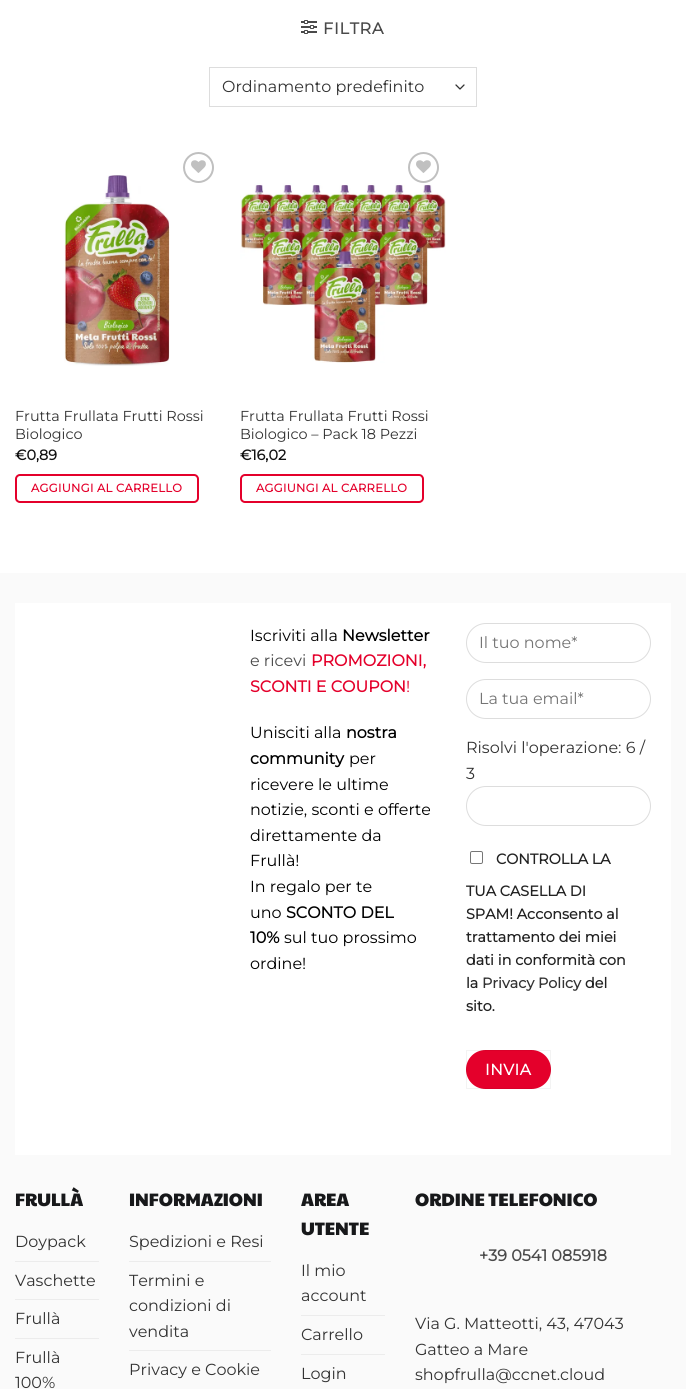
#include <cairo.h>
#include <math.h>
#include <stddef.h>

typedef struct { const char *family; double size; int italic, bold; unsigned color; } style_t;
static cairo_t *ctx;

static void ink(unsigned color) {
    cairo_set_source_rgb(ctx, (color >> 16) / 255.0, (color >> 8 & 255) / 255.0, (color & 255) / 255.0);
}

static void write(double x, double y, const char *s, const style_t *st) {
    cairo_select_font_face(ctx, st->family, st->italic ? CAIRO_FONT_SLANT_ITALIC : CAIRO_FONT_SLANT_NORMAL,
        st->bold ? CAIRO_FONT_WEIGHT_BOLD : CAIRO_FONT_WEIGHT_NORMAL);
    cairo_set_font_size(ctx, st->size);
    ink(st->color);
    cairo_move_to(ctx, x, y);
    cairo_show_text(ctx, s);
}

static void write_spaced(double x, double y, const char *s, double letter, double word) {
    cairo_move_to(ctx, x, y);
    while (*s) {
        char ch[5] = {0};
        int n = 0;
        do ch[n++] = *s++; while ((*s & 0xC0) == 0x80);
        cairo_show_text(ctx, ch);
        cairo_rel_move_to(ctx, letter + word * (*ch == ' '), 0);
    }
}

static void block(double x, double y, double w, double h, unsigned color) {
    ink(color);
    cairo_rectangle(ctx, x, y, w, h);
    cairo_fill(ctx);
}

static void round_path(double x, double y, double w, double h, double r) {
    cairo_new_sub_path(ctx);
    cairo_arc(ctx, x + w - r, y + h - r, r, 0, M_PI / 2);
    cairo_arc(ctx, x + r, y + h - r, r, M_PI / 2, M_PI);
    cairo_arc(ctx, x + r, y + r, r, M_PI, 1.5 * M_PI);
    cairo_arc(ctx, x + w - r, y + r, r, 1.5 * M_PI, 2 * M_PI);
    cairo_close_path(ctx);
}

static void paste(const char *path, double x, double y, double w, double h) {
    cairo_surface_t *image = cairo_image_surface_create_from_png(path);
    cairo_save(ctx);
    cairo_set_source_surface(ctx, image, x, y);
    cairo_rectangle(ctx, x, y, w, h);
    cairo_fill(ctx);
    cairo_restore(ctx);
    cairo_surface_destroy(image);
}

static const style_t s1 = {"Montserrat Thin", 16, 0, 0, 0x333333};
static const style_t s2 = {"Montserrat Thin", 14.4, 0, 0, 0x333333};
static const style_t s3 = {"Montserrat", 14.4, 0, 1, 0x111111};
static const style_t s4 = {"Montserrat Thin", 16, 0, 0, 0x000000};
static const style_t s5 = {"Montserrat", 16, 0, 1, 0x000000};
static const style_t s6 = {"Montserrat Thin", 16, 0, 0, 0x4a4a4a};
static const style_t s7 = {"Montserrat", 16, 0, 1, 0xe4002b};
static const style_t s8 = {"Montserrat Thin", 16, 0, 0, 0xe4002b};
static const style_t s9 = {"Montserrat Thin", 16, 0, 0, 0x757575};
static const style_t s10 = {"Montserrat", 14.4, 0, 1, 0x222222};
static const style_t s11 = {"Montserrat", 14.4, 0, 1, 0x333333};
static const style_t s12 = {"Paytone One", 18, 0, 0, 0x17181a};
static const style_t s13 = {"Montserrat", 16, 0, 1, 0x4a4a4a};

int main(void) {
    cairo_surface_t *surface = cairo_image_surface_create(CAIRO_FORMAT_RGB24, 686, 1389);
    ctx = cairo_create(surface);
    cairo_font_options_t *options = cairo_font_options_create();
    cairo_font_options_set_hint_metrics(options, CAIRO_HINT_METRICS_OFF);
    cairo_font_options_set_hint_style(options, CAIRO_HINT_STYLE_NONE);
    cairo_set_font_options(ctx, options);
    cairo_set_miter_limit(ctx, 4);
    ink(0xffffff);
    cairo_paint(ctx);
    paste("pic1.png", 301, 20, 16, 14);
    cairo_select_font_face(ctx, "Montserrat", CAIRO_FONT_SLANT_NORMAL, CAIRO_FONT_WEIGHT_BOLD);
    cairo_set_font_size(ctx, 16);
    ink(0x4a4a4a);
    write_spaced(323, 34, "FILTRA", 0.75, 0);
    cairo_new_path(ctx);
    cairo_move_to(ctx, 456, 85);
    cairo_line_to(ctx, 460, 89);
    cairo_line_to(ctx, 464, 85);
    ink(0x333333);
    cairo_set_line_width(ctx, 1.3);
    cairo_set_line_cap(ctx, CAIRO_LINE_CAP_ROUND);
    cairo_set_line_join(ctx, CAIRO_LINE_JOIN_ROUND);
    cairo_stroke(ctx);
    cairo_rectangle(ctx, 209.5, 67.5, 267, 39);
    ink(0xdddddd);
    cairo_set_line_width(ctx, 1);
    cairo_set_line_cap(ctx, CAIRO_LINE_CAP_BUTT);
    cairo_set_line_join(ctx, CAIRO_LINE_JOIN_MITER);
    cairo_stroke(ctx);
    write(222, 92, "Ordinamento predefinito", &s1);
    cairo_new_path(ctx);
    cairo_arc(ctx, 198.5, 167.5, 14.5, 0, 2 * M_PI);
    ink(0xc0c0c0);
    cairo_set_line_width(ctx, 2);
    cairo_stroke(ctx);
    paste("pic2.png", 191, 160, 15, 13);
    paste("pic3.png", 64, 175, 106, 191);
    write(15, 421, "Frutta Frullata Frutti Rossi", &s2);
    write(15, 439, "Biologico", &s2);
    write(15, 460, "€0,89", &s3);
    round_path(16, 475, 182, 27, 4);
    ink(0xe4002b);
    cairo_stroke(ctx);
    cairo_set_font_size(ctx, 11.5);
    write_spaced(31, 492, "AGGIUNGI AL CARRELLO", 0.3, 0);
    cairo_new_path(ctx);
    cairo_arc(ctx, 423.5, 167.5, 14.5, 0, 2 * M_PI);
    ink(0xc0c0c0);
    cairo_stroke(ctx);
    paste("pic2.png", 416, 160, 15, 13);
    paste("pic4.png", 240, 183, 206, 180);
    write(240, 421, "Frutta Frullata Frutti Rossi", &s2);
    write(240, 439, "Biologico – Pack 18 Pezzi", &s2);
    write(240, 460, "€16,02", &s3);
    round_path(241, 475, 182, 27, 4);
    ink(0xe4002b);
    cairo_stroke(ctx);
    cairo_set_font_size(ctx, 11.5);
    write_spaced(256, 492, "AGGIUNGI AL CARRELLO", 0.3, 0);
    block(0, 573, 686, 816, 0xfafafa);
    block(15, 603, 656, 552, 0xffffff);
    write(250, 641, "Iscriviti alla", &s4);
    write(342, 641, "Newsletter", &s5);
    write(250, 666, "e ricevi", &s6);
    write(311, 666, "PROMOZIONI,", &s7);
    write(250, 692, "SCONTI E COUPON", &s7);
    write(406, 692, "!", &s8);
    write(250, 738, "Unisciti alla", &s4);
    write(346, 738, "nostra", &s5);
    write(250, 764, "community", &s5);
    write(349, 764, "per", &s4);
    write(250, 790, "ricevere le ultime", &s4);
    write(250, 815, "notizie, sconti e offerte", &s4);
    write(250, 841, "direttamente da", &s4);
    write(250, 866, "Frullà!", &s4);
    write(250, 892, "In regalo per te", &s4);
    write(250, 918, "uno", &s4);
    write(286, 918, "SCONTO DEL", &s5);
    write(250, 943, "10%", &s5);
    write(284, 943, "sul tuo prossimo", &s4);
    write(250, 969, "ordine!", &s4);
    round_path(466.5, 623.5, 184, 39, 19.5);
    ink(0xdddddd);
    cairo_set_line_width(ctx, 1);
    cairo_stroke(ctx);
    write(479, 648, "Il tuo nome*", &s9);
    round_path(466.5, 679.5, 184, 39, 19.5);
    ink(0xdddddd);
    cairo_stroke(ctx);
    write(479, 704, "La tua email*", &s9);
    write(466, 753, "Risolvi l'operazione: 6 /", &s1);
    write(466, 779, "3", &s1);
    round_path(466.5, 786.5, 184, 39, 19.5);
    ink(0xdddddd);
    cairo_stroke(ctx);
    round_path(470.5, 851.5, 12, 12, 1.5);
    ink(0x767676);
    cairo_stroke(ctx);
    write(496, 864, "CONTROLLA LA", &s10);
    write(466, 896, "TUA CASELLA DI", &s10);
    write(466, 919, "SPAM! Acconsento al", &s10);
    write(466, 942, "trattamento dei miei", &s10);
    write(466, 965, "dati in conformità con", &s10);
    write(466, 988, "la", &s10);
    write(482, 988, "Privacy Policy", &s11);
    write(585, 988, "del", &s10);
    write(466, 1011, "sito.", &s10);
    ink(0xe4002b);
    round_path(466, 1050, 85, 39, 19.5);
    cairo_fill(ctx);
    cairo_rectangle(ctx, 466.5, 1050.5, 84, 38);
    cairo_set_source_rgba(ctx, 0, 0, 0, 0.05);
    cairo_stroke(ctx);
    cairo_set_font_size(ctx, 15.5);
    ink(0xffffff);
    write_spaced(485, 1075, "INVIA", 0.5, 0);
    write(15, 1206, "FRULLÀ", &s12);
    write(15, 1247, "Doypack", &s1);
    block(15, 1261, 84, 1, 0xececec);
    write(15, 1286, "Vaschette", &s1);
    block(15, 1299, 84, 1, 0xececec);
    write(15, 1324, "Frullà", &s1);
    block(15, 1338, 84, 1, 0xececec);
    write(15, 1363, "Frullà", &s1);
    write(15, 1388, "100%", &s1);
    write(129, 1206, "INFORMAZIONI", &s12);
    write(129, 1247, "Spedizioni e Resi", &s1);
    block(129, 1261, 142, 1, 0xececec);
    write(129, 1286, "Termini e", &s1);
    write(129, 1311, "condizioni di", &s1);
    write(129, 1337, "vendita", &s1);
    block(129, 1350, 142, 1, 0xececec);
    write(129, 1375, "Privacy e Cookie", &s1);
    write(301, 1206, "AREA", &s12);
    write(301, 1235, "UTENTE", &s12);
    write(301, 1276, "Il mio", &s1);
    write(301, 1301, "account", &s1);
    block(301, 1315, 84, 1, 0xececec);
    write(301, 1340, "Carrello", &s1);
    block(301, 1354, 84, 1, 0xececec);
    write(301, 1379, "Login", &s1);
    write(415, 1206, "ORDINE TELEFONICO", &s12);
    write(479, 1261, "+39 0541 085918", &s13);
    write(415, 1329, "Via G. Matteotti, 43, 47043", &s1);
    write(415, 1355, "Gatteo a Mare", &s1);
    write(415, 1380, "shopfrulla@ccnet.cloud", &s1);
    cairo_surface_write_to_png(surface, "screenshot.png");
    cairo_font_options_destroy(options);
    cairo_destroy(ctx);
    cairo_surface_destroy(surface);
    return 0;
}
